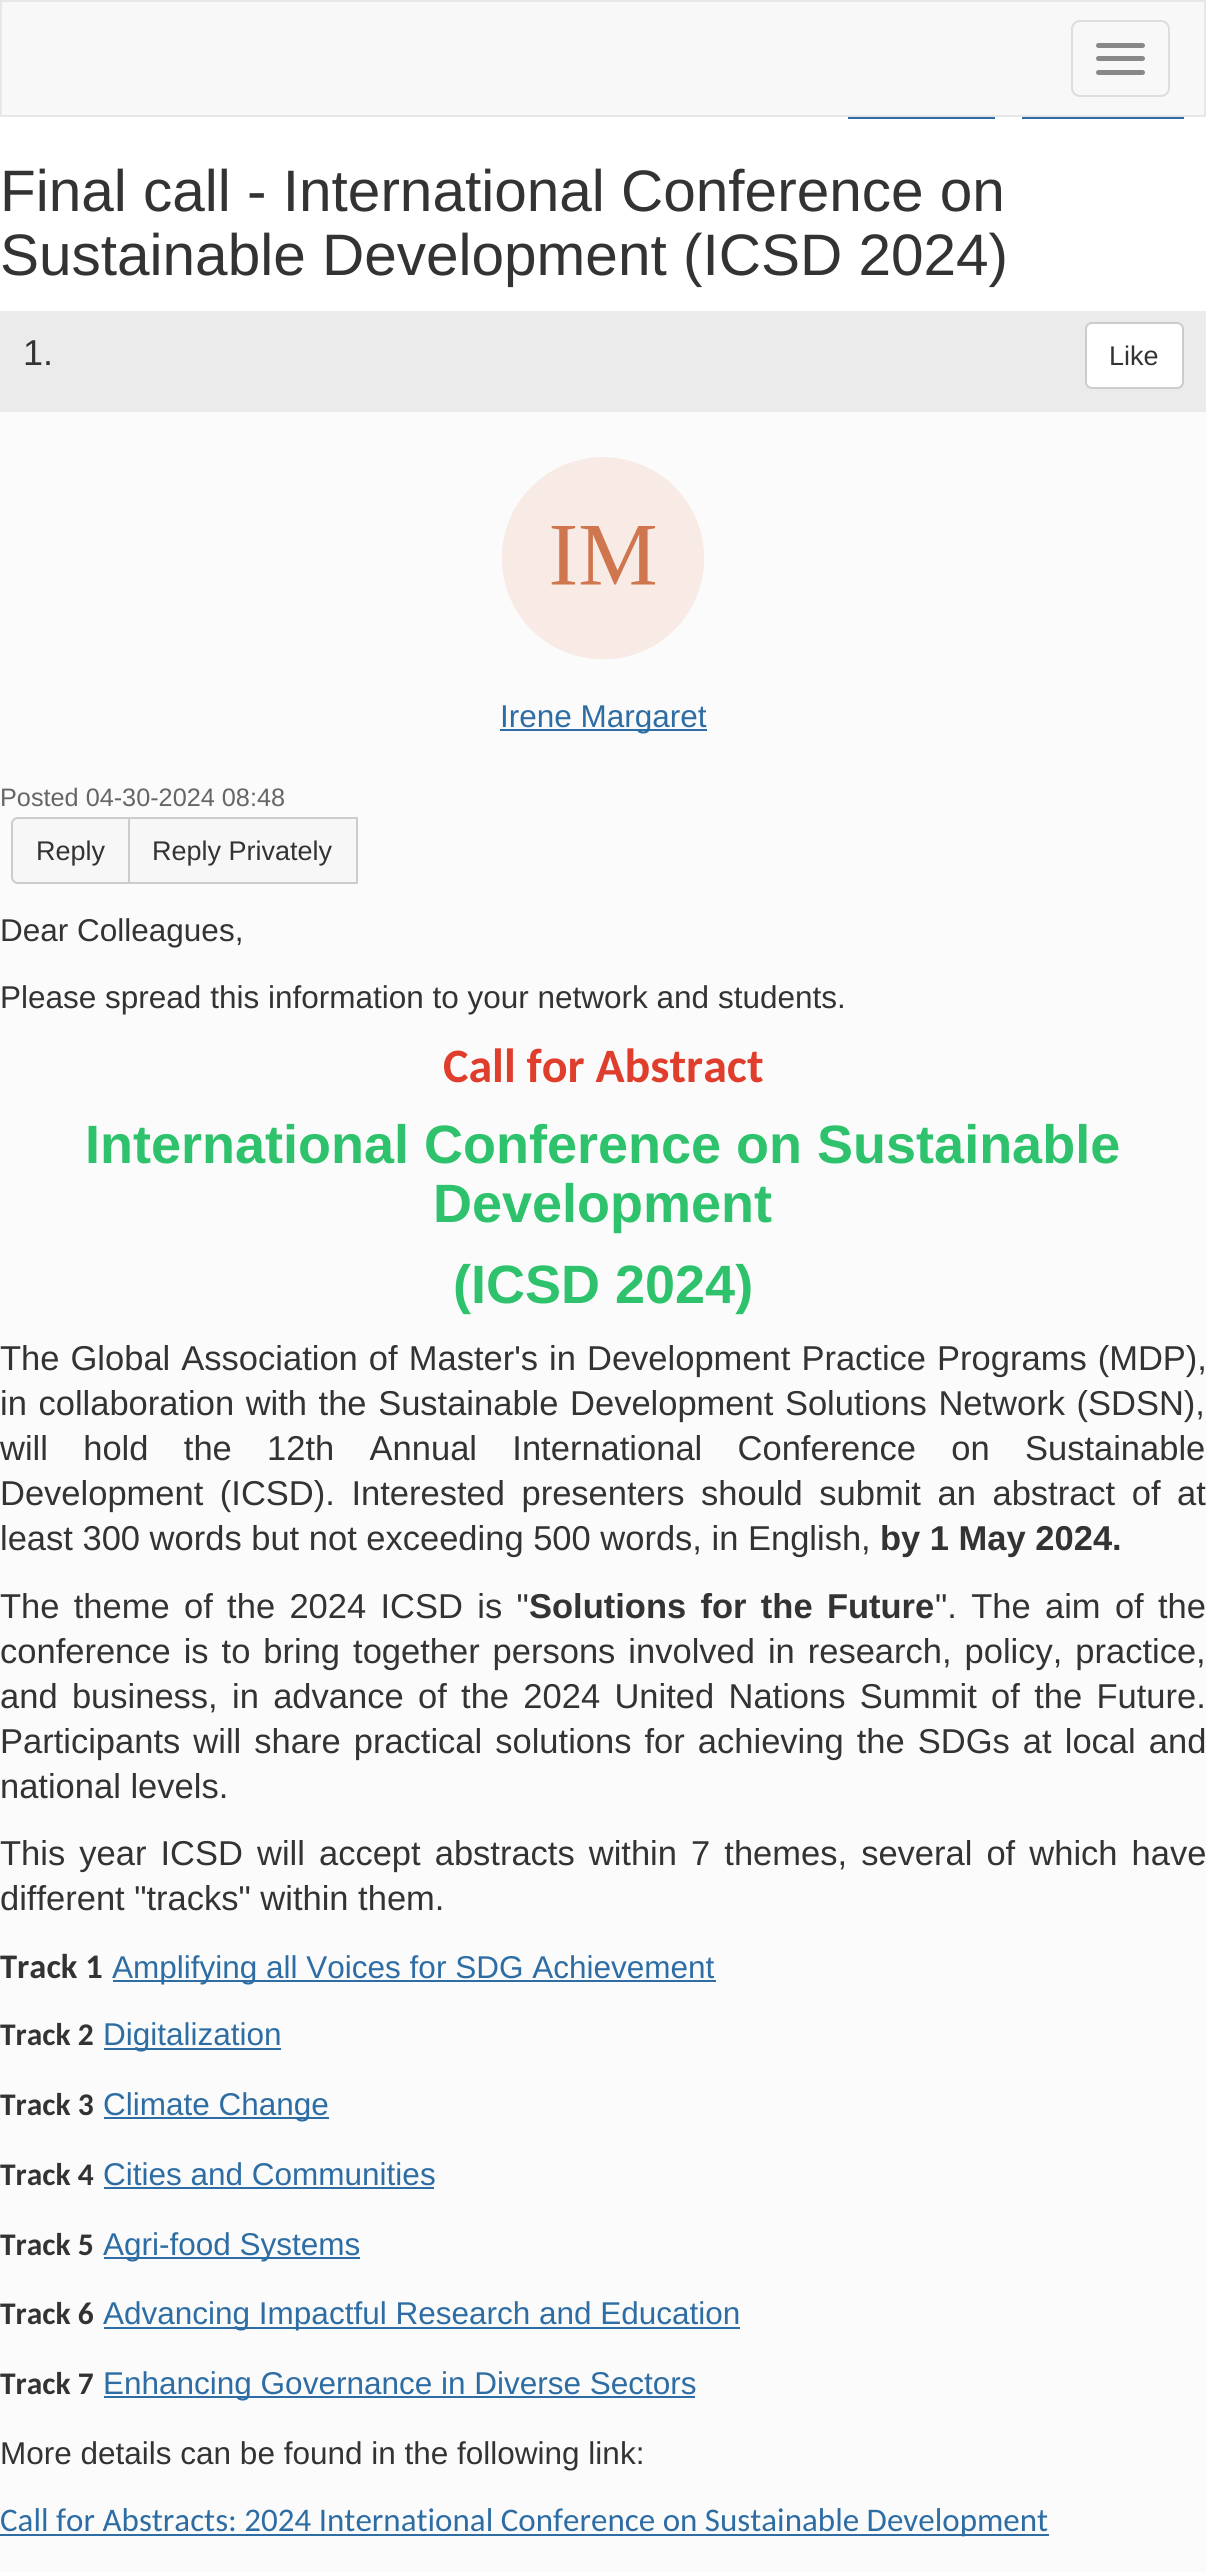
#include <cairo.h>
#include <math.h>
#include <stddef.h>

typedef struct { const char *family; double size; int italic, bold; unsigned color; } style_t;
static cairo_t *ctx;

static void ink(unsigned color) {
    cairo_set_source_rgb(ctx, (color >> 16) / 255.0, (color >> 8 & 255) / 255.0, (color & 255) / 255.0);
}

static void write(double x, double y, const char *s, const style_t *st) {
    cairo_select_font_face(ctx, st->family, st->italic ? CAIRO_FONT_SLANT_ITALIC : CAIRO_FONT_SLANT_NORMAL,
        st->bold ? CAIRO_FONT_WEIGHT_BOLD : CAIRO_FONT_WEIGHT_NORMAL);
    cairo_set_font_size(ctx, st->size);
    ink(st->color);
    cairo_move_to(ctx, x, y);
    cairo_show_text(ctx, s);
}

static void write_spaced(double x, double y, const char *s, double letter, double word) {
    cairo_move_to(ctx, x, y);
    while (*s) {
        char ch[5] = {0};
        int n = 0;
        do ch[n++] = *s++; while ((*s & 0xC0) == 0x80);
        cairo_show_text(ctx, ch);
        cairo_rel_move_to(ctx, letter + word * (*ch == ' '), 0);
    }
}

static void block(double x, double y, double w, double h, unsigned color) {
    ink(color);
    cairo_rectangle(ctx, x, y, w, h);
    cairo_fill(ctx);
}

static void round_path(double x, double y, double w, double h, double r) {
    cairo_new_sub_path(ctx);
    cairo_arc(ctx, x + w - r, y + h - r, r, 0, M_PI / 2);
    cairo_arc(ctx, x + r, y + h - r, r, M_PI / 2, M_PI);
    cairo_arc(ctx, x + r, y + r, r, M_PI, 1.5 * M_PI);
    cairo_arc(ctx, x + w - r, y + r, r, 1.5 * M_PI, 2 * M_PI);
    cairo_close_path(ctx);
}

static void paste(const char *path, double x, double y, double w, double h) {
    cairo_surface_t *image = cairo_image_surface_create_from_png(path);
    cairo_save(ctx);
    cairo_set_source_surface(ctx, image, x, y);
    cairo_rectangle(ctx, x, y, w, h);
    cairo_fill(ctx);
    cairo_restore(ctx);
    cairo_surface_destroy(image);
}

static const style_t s1 = {"Liberation Sans", 58.5, 0, 0, 0x333333};
static const style_t s2 = {"Liberation Sans", 36, 0, 0, 0x333333};
static const style_t s3 = {"Liberation Sans", 27, 0, 0, 0x333333};
static const style_t s4 = {"Liberation Sans", 31.5, 0, 0, 0x2e6da4};
static const style_t s5 = {"Liberation Sans", 25.25, 0, 0, 0x666666};
static const style_t s6 = {"Liberation Sans", 31.5, 0, 0, 0x333333};
static const style_t s7 = {"Carlito", 48, 0, 1, 0xe03e2d};
static const style_t s8 = {"Liberation Sans", 54, 0, 1, 0x2dc26b};
static const style_t s9 = {"Liberation Sans", 34.5, 0, 0, 0x333333};
static const style_t s10 = {"Liberation Sans", 34.5, 0, 1, 0x333333};
static const style_t s11 = {"Carlito", 34.5, 0, 1, 0x333333};
static const style_t s12 = {"Carlito", 31.5, 0, 1, 0x333333};
static const style_t s13 = {"Carlito", 33, 0, 0, 0x2e6da4};

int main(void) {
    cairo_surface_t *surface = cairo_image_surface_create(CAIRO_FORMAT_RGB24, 1206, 2572);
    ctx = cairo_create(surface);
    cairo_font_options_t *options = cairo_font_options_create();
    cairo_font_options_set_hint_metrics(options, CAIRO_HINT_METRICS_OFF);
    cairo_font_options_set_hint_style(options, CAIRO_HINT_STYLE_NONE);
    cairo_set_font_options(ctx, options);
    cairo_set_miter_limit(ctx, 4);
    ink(0xffffff);
    cairo_paint(ctx);
    ink(0xf8f8f8);
    cairo_rectangle(ctx, 1, 1, 1204, 115);
    cairo_fill_preserve(ctx);
    ink(0xe7e7e7);
    cairo_stroke(ctx);
    round_path(1072, 21, 97, 75, 8);
    ink(0xdddddd);
    cairo_stroke(ctx);
    ink(0x888888);
    round_path(1096, 43, 49, 5, 2.5);
    cairo_fill(ctx);
    round_path(1096, 56, 49, 5, 2.5);
    cairo_fill(ctx);
    round_path(1096, 70, 49, 5, 2.5);
    cairo_fill(ctx);
    block(848, 117, 147, 2, 0x2e6da4);
    block(1022, 117, 162, 2, 0x2e6da4);
    write(0, 211, "Final call - International Conference on", &s1);
    write(0, 275, "Sustainable Development (ICSD 2024)", &s1);
    block(0, 412, 1206, 2160, 0xfbfbfb);
    block(0, 311, 1206, 101, 0xebebeb);
    write(23, 365, "1.", &s2);
    ink(0xffffff);
    round_path(1086, 323, 97, 65, 6);
    cairo_fill_preserve(ctx);
    ink(0xcccccc);
    cairo_stroke(ctx);
    write(1109, 365, "Like", &s3);
    paste("pic1.png", 502, 457, 202, 203);
    block(500, 729, 207, 2, 0x2e6da4);
    write(500, 727, "Irene Margaret", &s4);
    write(0, 806, "Posted 04-30-2024 08:48", &s5);
    ink(0xf7f7f7);
    cairo_new_path(ctx);
    cairo_move_to(ctx, 18, 818);
    cairo_line_to(ctx, 130, 818);
    cairo_line_to(ctx, 130, 883);
    cairo_line_to(ctx, 18, 883);
    cairo_curve_to(ctx, 14.5, 883, 12, 880.5, 12, 877);
    cairo_line_to(ctx, 12, 824);
    cairo_curve_to(ctx, 12, 820.5, 14.5, 818, 18, 818);
    cairo_close_path(ctx);
    cairo_fill_preserve(ctx);
    ink(0xcccccc);
    cairo_stroke(ctx);
    write(36, 860, "Reply", &s3);
    ink(0xf7f7f7);
    cairo_rectangle(ctx, 129, 818, 228, 65);
    cairo_fill_preserve(ctx);
    ink(0xcccccc);
    cairo_stroke(ctx);
    write(152, 860, "Reply Privately", &s3);
    write(0, 941, "Dear Colleagues,", &s6);
    write(0, 1008, "Please spread this information to your network and students.", &s6);
    write(443, 1082, "Call for Abstract", &s7);
    write(85, 1163, "International Conference on Sustainable", &s8);
    write(433, 1222, "Development", &s8);
    write(453, 1303, "(ICSD 2024)", &s8);
    cairo_select_font_face(ctx, "Liberation Sans", CAIRO_FONT_SLANT_NORMAL, CAIRO_FONT_WEIGHT_NORMAL);
    cairo_set_font_size(ctx, 34.5);
    ink(0x333333);
    write_spaced(0, 1370, "The Global Association of Master's in Development Practice Programs (MDP),", 0, 1.5);
    write_spaced(0, 1415, "in collaboration with the Sustainable Development Solutions Network (SDSN),", 0, 2);
    write_spaced(0, 1460, "will hold the 12th Annual International Conference on Sustainable", 0, 25.75);
    write_spaced(0, 1505, "Development (ICSD). Interested presenters should submit an abstract of at", 0, 7);
    write(0, 1550, "least 300 words but not exceeding 500 words, in English,", &s9);
    write(880, 1550, "by 1 May 2024.", &s10);
    cairo_select_font_face(ctx, "Liberation Sans", CAIRO_FONT_SLANT_NORMAL, CAIRO_FONT_WEIGHT_NORMAL);
    write_spaced(0, 1618, "The theme of the 2024 ICSD is \"", 0, 4.75);
    cairo_select_font_face(ctx, "Liberation Sans", CAIRO_FONT_SLANT_NORMAL, CAIRO_FONT_WEIGHT_BOLD);
    write_spaced(529, 1618, "Solutions for the Future", 0, 4.75);
    cairo_select_font_face(ctx, "Liberation Sans", CAIRO_FONT_SLANT_NORMAL, CAIRO_FONT_WEIGHT_NORMAL);
    write_spaced(935, 1618, "\". The aim of the", 0, 4.75);
    write_spaced(0, 1663, "conference is to bring together persons involved in research, policy, practice,", 0, 3.4);
    write_spaced(0, 1708, "and business, in advance of the 2024 United Nations Summit of the Future.", 0, 4.75);
    write_spaced(0, 1753, "Participants will share practical solutions for achieving the SDGs at local and", 0, 3.5);
    write(0, 1798, "national levels.", &s9);
    write_spaced(0, 1865, "This year ICSD will accept abstracts within 7 themes, several of which have", 0, 4.5);
    write(0, 1910, "different \"tracks\" within them.", &s9);
    write(0, 1978, "Track 1", &s11);
    block(113, 1980, 603, 2, 0x2e6da4);
    write(112, 1978, "Amplifying all Voices for SDG Achievement", &s4);
    write(0, 2045, "Track 2", &s12);
    block(104, 2048, 177, 2, 0x2e6da4);
    write(103, 2045, "Digitalization", &s4);
    write(0, 2115, "Track 3", &s12);
    block(104, 2117, 225, 2, 0x2e6da4);
    write(103, 2115, "Climate Change", &s4);
    write(0, 2185, "Track 4", &s12);
    write(103, 2185, "Cities and Communities", &s4);
    block(104, 2187, 330, 2, 0x2e6da4);
    write(0, 2255, "Track 5", &s12);
    block(104, 2257, 256, 2, 0x2e6da4);
    write(103, 2255, "Agri-food Systems", &s4);
    write(0, 2324, "Track 6", &s12);
    block(104, 2327, 636, 2, 0x2e6da4);
    write(103, 2324, "Advancing Impactful Research and Education", &s4);
    write(0, 2394, "Track 7", &s12);
    block(104, 2396, 591, 2, 0x2e6da4);
    write(103, 2394, "Enhancing Governance in Diverse Sectors", &s4);
    write(0, 2464, "More details can be found in the following link:", &s6);
    block(0, 2534, 1049, 2, 0x2e6da4);
    write(0, 2531, "Call for Abstracts: 2024 International Conference on Sustainable Development", &s13);
    cairo_surface_write_to_png(surface, "screenshot.png");
    cairo_font_options_destroy(options);
    cairo_destroy(ctx);
    cairo_surface_destroy(surface);
    return 0;
}
